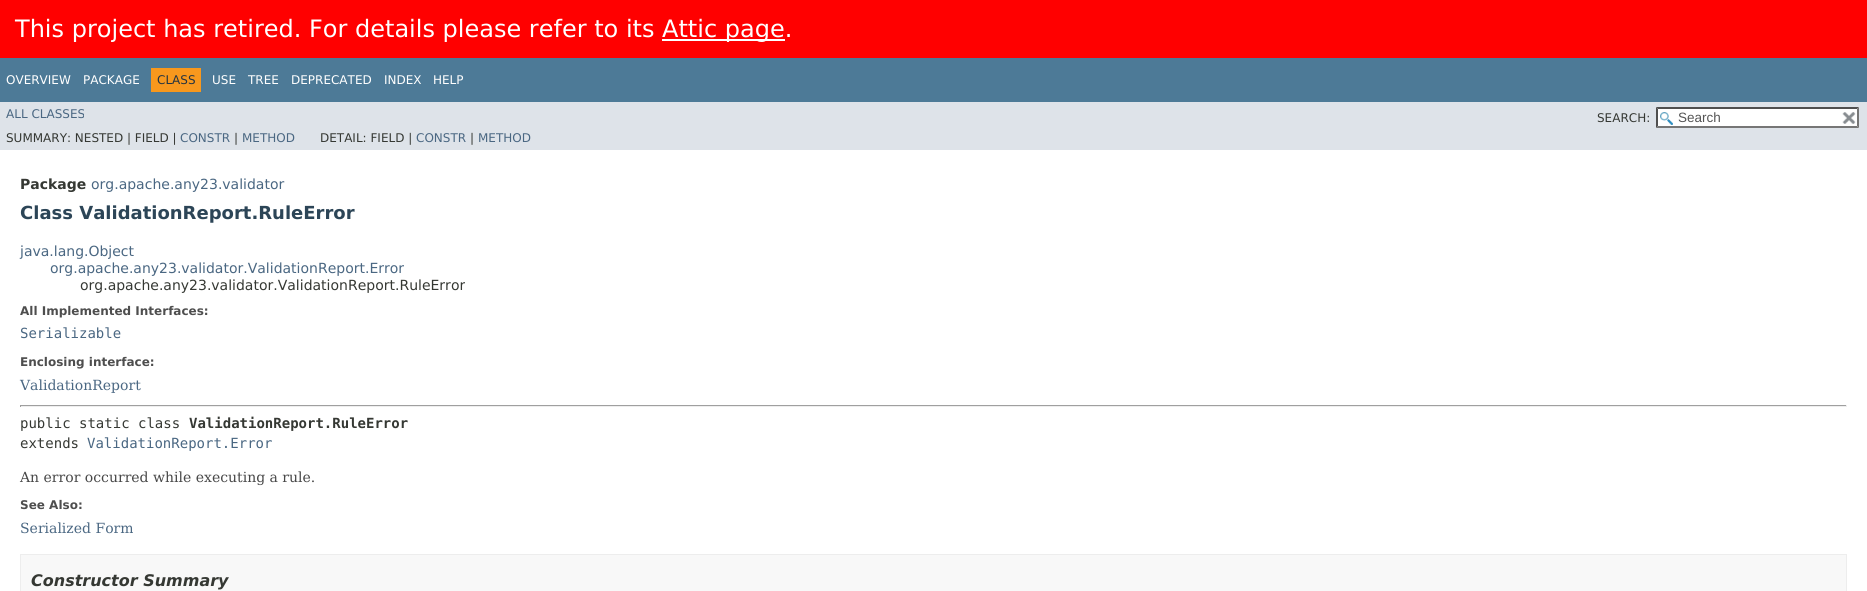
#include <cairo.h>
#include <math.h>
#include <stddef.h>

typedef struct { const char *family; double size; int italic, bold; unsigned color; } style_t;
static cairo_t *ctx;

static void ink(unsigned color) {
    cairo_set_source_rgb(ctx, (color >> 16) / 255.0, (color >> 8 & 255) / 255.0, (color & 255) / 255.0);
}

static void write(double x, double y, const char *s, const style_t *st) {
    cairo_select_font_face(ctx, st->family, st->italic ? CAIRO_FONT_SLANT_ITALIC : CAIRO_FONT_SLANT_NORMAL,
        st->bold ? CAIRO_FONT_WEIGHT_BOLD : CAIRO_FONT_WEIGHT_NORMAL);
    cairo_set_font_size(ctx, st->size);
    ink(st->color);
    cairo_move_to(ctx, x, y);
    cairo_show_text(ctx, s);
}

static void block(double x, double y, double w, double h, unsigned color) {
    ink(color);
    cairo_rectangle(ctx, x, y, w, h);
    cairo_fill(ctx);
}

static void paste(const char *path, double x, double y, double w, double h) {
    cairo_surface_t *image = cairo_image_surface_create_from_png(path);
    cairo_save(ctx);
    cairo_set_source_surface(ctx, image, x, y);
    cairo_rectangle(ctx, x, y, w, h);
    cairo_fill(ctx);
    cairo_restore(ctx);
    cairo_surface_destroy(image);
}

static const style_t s1 = {"DejaVu Sans", 24, 0, 0, 0xffffff};
static const style_t s2 = {"DejaVu Sans", 12, 0, 0, 0xffffff};
static const style_t s3 = {"DejaVu Sans", 12, 0, 0, 0x253441};
static const style_t s4 = {"DejaVu Sans", 12, 0, 0, 0x4a6782};
static const style_t s5 = {"DejaVu Sans", 12, 0, 0, 0x353833};
static const style_t s6 = {"Liberation Sans", 13.5, 0, 0, 0x545454};
static const style_t s7 = {"DejaVu Sans", 14, 0, 1, 0x353833};
static const style_t s8 = {"DejaVu Sans", 14, 0, 0, 0x4a6782};
static const style_t s9 = {"DejaVu Sans", 18, 0, 1, 0x2c4557};
static const style_t s10 = {"DejaVu Sans", 14, 0, 0, 0x353833};
static const style_t s11 = {"DejaVu Sans", 12, 0, 1, 0x4e4e4e};
static const style_t s12 = {"DejaVu Sans Mono", 14, 0, 0, 0x4a6782};
static const style_t s13 = {"DejaVu Serif", 14, 0, 0, 0x4a6782};
static const style_t s14 = {"DejaVu Sans Mono", 14, 0, 0, 0x353833};
static const style_t s15 = {"DejaVu Sans Mono", 14, 0, 1, 0x353833};
static const style_t s16 = {"DejaVu Serif", 14, 0, 0, 0x474747};
static const style_t s17 = {"DejaVu Sans", 16, 1, 1, 0x353833};

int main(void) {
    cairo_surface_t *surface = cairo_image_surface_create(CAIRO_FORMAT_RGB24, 1867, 591);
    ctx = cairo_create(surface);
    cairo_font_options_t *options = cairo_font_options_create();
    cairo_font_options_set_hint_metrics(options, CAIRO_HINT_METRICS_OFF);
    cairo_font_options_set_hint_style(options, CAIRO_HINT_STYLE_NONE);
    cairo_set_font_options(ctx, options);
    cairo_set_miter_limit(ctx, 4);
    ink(0xffffff);
    cairo_paint(ctx);
    block(0, 0, 1867, 58, 0xff0000);
    write(15, 37, "This project has retired. For details please refer to its", &s1);
    block(662, 39, 123, 2, 0xffffff);
    write(662, 37, "Attic page.", &s1);
    block(0, 58, 1867, 44, 0x4d7a97);
    write(6, 84, "OVERVIEW", &s2);
    write(83, 84, "PACKAGE", &s2);
    block(151, 68, 50, 24, 0xf8981d);
    write(157, 84, "CLASS", &s3);
    write(212, 84, "USE", &s2);
    write(248, 84, "TREE", &s2);
    write(291, 84, "DEPRECATED", &s2);
    write(384, 84, "INDEX", &s2);
    write(433, 84, "HELP", &s2);
    block(0, 102, 1867, 48, 0xdee3e9);
    write(6, 118, "ALL CLASSES", &s4);
    write(1597, 122, "SEARCH:", &s5);
    block(1656, 107, 203, 21, 0xffffff);
    paste("pic1.png", 1660, 112, 13, 13);
    ink(0x4f4f4f);
    cairo_new_path(ctx);
    cairo_move_to(ctx, 1656, 107);
    cairo_line_to(ctx, 1859, 107);
    cairo_line_to(ctx, 1857, 109);
    cairo_line_to(ctx, 1658, 109);
    cairo_close_path(ctx);
    cairo_fill(ctx);
    ink(0x767676);
    cairo_new_path(ctx);
    cairo_move_to(ctx, 1859, 107);
    cairo_line_to(ctx, 1859, 128);
    cairo_line_to(ctx, 1857, 126);
    cairo_line_to(ctx, 1857, 109);
    cairo_close_path(ctx);
    cairo_fill(ctx);
    cairo_new_path(ctx);
    cairo_move_to(ctx, 1859, 128);
    cairo_line_to(ctx, 1656, 128);
    cairo_line_to(ctx, 1658, 126);
    cairo_line_to(ctx, 1857, 126);
    cairo_close_path(ctx);
    cairo_fill(ctx);
    ink(0x4f4f4f);
    cairo_new_path(ctx);
    cairo_move_to(ctx, 1656, 128);
    cairo_line_to(ctx, 1656, 107);
    cairo_line_to(ctx, 1658, 109);
    cairo_line_to(ctx, 1658, 126);
    cairo_close_path(ctx);
    cairo_fill(ctx);
    write(1678, 122, "Search", &s6);
    paste("pic2.png", 1842, 112, 14, 12);
    write(6, 142, "SUMMARY: NESTED | FIELD |", &s5);
    write(180, 142, "CONSTR", &s4);
    write(234, 142, "|", &s5);
    write(242, 142, "METHOD", &s4);
    write(320, 142, "DETAIL: FIELD |", &s5);
    write(416, 142, "CONSTR", &s4);
    write(470, 142, "|", &s5);
    write(478, 142, "METHOD", &s4);
    write(20, 189, "Package", &s7);
    write(91, 189, "org.apache.any23.validator", &s8);
    write(20, 219, "Class ValidationReport.RuleError", &s9);
    write(20, 256, "java.lang.Object", &s8);
    write(50, 273, "org.apache.any23.validator.ValidationReport.Error", &s8);
    write(80, 290, "org.apache.any23.validator.ValidationReport.RuleError", &s10);
    write(20, 315, "All Implemented Interfaces:", &s11);
    write(20, 338, "Serializable", &s12);
    write(20, 366, "Enclosing interface:", &s11);
    write(20, 390, "ValidationReport", &s13);
    block(20, 405, 1827, 1, 0x9f9f9f);
    block(1846, 405, 1, 2, 0xeeeeee);
    block(20, 406, 1827, 1, 0xeeeeee);
    block(20, 405, 1, 2, 0x9f9f9f);
    write(20, 428, "public static class", &s14);
    write(189, 428, "ValidationReport.RuleError", &s15);
    write(20, 448, "extends", &s14);
    write(87, 448, "ValidationReport.Error", &s12);
    write(20, 482, "An error occurred while executing a rule.", &s16);
    write(20, 509, "See Also:", &s11);
    write(20, 533, "Serialized Form", &s13);
    ink(0xf8f8f8);
    cairo_rectangle(ctx, 20.5, 554.5, 1826, 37);
    cairo_fill_preserve(ctx);
    ink(0xededed);
    cairo_set_line_width(ctx, 1);
    cairo_stroke(ctx);
    write(31, 586, "Constructor Summary", &s17);
    cairo_surface_write_to_png(surface, "screenshot.png");
    cairo_font_options_destroy(options);
    cairo_destroy(ctx);
    cairo_surface_destroy(surface);
    return 0;
}
